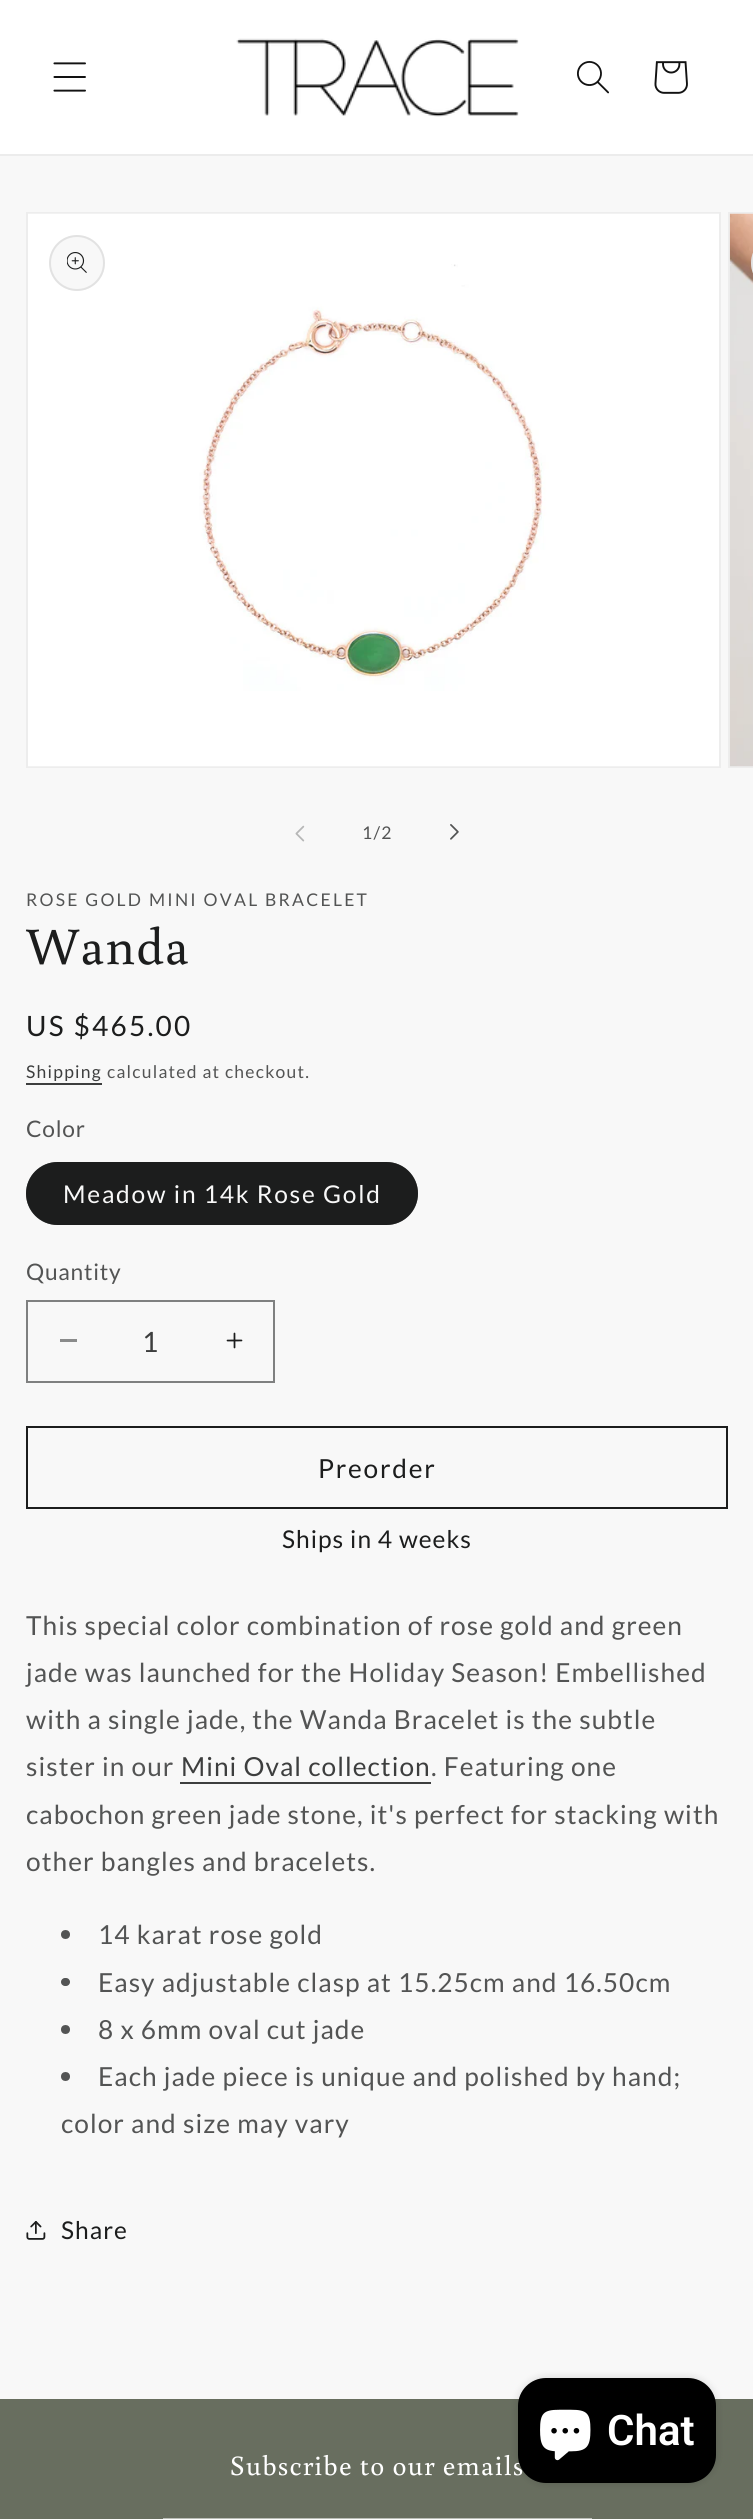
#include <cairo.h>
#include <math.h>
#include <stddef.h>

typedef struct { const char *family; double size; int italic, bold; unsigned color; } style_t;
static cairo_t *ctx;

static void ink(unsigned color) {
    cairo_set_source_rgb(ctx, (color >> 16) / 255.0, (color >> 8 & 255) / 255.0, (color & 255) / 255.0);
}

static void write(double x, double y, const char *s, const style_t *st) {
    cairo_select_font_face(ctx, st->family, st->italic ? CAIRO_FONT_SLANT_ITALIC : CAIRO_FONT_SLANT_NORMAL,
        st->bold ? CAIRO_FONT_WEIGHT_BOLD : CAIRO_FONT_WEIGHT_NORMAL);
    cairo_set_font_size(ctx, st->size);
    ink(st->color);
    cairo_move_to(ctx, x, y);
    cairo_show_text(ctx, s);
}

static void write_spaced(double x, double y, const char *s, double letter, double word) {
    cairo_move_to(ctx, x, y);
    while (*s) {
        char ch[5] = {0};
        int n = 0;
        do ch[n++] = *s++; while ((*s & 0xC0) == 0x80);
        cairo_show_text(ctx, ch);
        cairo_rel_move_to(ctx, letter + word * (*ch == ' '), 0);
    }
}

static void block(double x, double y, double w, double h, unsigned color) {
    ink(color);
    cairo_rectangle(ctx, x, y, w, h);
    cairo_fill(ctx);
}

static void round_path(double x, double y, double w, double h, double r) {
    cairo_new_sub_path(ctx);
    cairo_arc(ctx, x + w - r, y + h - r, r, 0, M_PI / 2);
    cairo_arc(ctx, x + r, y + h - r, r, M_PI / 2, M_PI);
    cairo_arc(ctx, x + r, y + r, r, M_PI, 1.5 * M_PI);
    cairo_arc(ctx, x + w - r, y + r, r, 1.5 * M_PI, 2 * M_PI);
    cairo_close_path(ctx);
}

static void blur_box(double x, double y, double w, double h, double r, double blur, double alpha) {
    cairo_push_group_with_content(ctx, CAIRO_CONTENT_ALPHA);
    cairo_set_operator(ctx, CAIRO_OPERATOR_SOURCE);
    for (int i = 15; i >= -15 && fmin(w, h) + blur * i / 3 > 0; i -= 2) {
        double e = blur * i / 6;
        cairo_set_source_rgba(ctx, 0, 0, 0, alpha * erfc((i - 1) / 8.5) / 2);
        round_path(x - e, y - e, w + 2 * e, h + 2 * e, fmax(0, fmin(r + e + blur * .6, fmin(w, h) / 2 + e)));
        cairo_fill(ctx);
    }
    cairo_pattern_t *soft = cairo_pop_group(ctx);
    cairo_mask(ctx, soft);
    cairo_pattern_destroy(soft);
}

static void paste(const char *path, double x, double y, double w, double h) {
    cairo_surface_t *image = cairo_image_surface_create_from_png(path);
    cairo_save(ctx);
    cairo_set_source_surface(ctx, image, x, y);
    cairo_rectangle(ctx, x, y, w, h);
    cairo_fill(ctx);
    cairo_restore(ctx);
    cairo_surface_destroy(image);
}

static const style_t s1 = {"Lato", 28, 0, 0, 0x3d3e3e};
static const style_t s2 = {"Roboto SemiBold", 42, 0, 0, 0xffffff};

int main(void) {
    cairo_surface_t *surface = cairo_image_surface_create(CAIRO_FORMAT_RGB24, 753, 2519);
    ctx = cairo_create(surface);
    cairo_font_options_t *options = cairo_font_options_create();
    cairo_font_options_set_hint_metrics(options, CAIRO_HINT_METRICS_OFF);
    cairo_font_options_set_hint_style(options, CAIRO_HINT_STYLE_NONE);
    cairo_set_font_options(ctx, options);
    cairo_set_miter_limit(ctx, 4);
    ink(0xffffff);
    cairo_paint(ctx);
    block(0, 154, 753, 2, 0xececec);
    paste("pic1.png", 53, 62, 33, 30);
    paste("pic2.png", 236, 38, 283, 79);
    paste("pic3.png", 577, 61, 32, 33);
    paste("pic4.png", 654, 61, 34, 33);
    block(0, 156, 753, 2243, 0xf8f8f8);
    cairo_rectangle(ctx, 27, 213, 693, 554);
    ink(0xededed);
    cairo_stroke(ctx);
    paste("pic5.png", 28, 213, 691, 554);
    ink(0xf8f8f8);
    cairo_arc(ctx, 77, 263, 28, 0, 2 * M_PI);
    cairo_fill(ctx);
    cairo_arc(ctx, 77, 263, 27, 0, 2 * M_PI);
    cairo_set_source_rgba(ctx, 0.11, 0.114, 0.114, 0.1);
    cairo_stroke(ctx);
    paste("pic6.png", 67, 252, 20, 21);
    cairo_rectangle(ctx, 729, 213, 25, 554);
    ink(0xededed);
    cairo_stroke(ctx);
    paste("pic7.png", 729, 213, 24, 554);
    ink(0xf8f8f8);
    cairo_new_path(ctx);
    cairo_move_to(ctx, 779, 235);
    cairo_line_to(ctx, 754, 235);
    cairo_line_to(ctx, 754, 291);
    cairo_line_to(ctx, 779, 291);
    cairo_curve_to(ctx, 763.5, 291, 751, 278.5, 751, 263);
    cairo_curve_to(ctx, 751, 247.5, 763.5, 235, 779, 235);
    cairo_close_path(ctx);
    cairo_fill(ctx);
    round_path(752, 236, 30, 54, 27);
    cairo_set_source_rgba(ctx, 0.11, 0.114, 0.114, 0.1);
    cairo_stroke(ctx);
    paste("pic8.png", 295, 825, 10, 17);
    cairo_select_font_face(ctx, "Lato", CAIRO_FONT_SLANT_NORMAL, CAIRO_FONT_WEIGHT_NORMAL);
    cairo_set_font_size(ctx, 17.5);
    ink(0x535454);
    write_spaced(362, 839, "1/2", 1.25, 0);
    paste("pic9.png", 450, 824, 9, 16);
    write_spaced(26, 906, "ROSE GOLD MINI OVAL BRACELET", 2.25, 0);
    cairo_select_font_face(ctx, "Buenard", CAIRO_FONT_SLANT_NORMAL, CAIRO_FONT_WEIGHT_NORMAL);
    cairo_set_font_size(ctx, 52.5);
    ink(0x1c1d1d);
    write_spaced(26, 964, "Wanda", 1.05, 0);
    cairo_select_font_face(ctx, "Lato", CAIRO_FONT_SLANT_NORMAL, CAIRO_FONT_WEIGHT_NORMAL);
    cairo_set_font_size(ctx, 28);
    write_spaced(26, 1036, "US $465.00", 2.25, 0);
    cairo_set_font_size(ctx, 17.5);
    ink(0x3d3e3e);
    write_spaced(26, 1078, "Shipping", 1.25, 0);
    block(26, 1083, 76, 2, 0x3d3e3e);
    ink(0x535454);
    write_spaced(107, 1078, "calculated at checkout.", 1.25, 0);
    cairo_set_font_size(ctx, 22.75);
    write_spaced(26, 1137, "Color", 0.75, 0);
    ink(0x1c1d1d);
    round_path(26, 1162, 392, 63, 31.5);
    cairo_fill(ctx);
    round_path(27, 1163, 390, 61, 30.5);
    cairo_set_source_rgba(ctx, 0.11, 0.114, 0.114, 0.55);
    cairo_stroke(ctx);
    cairo_set_font_size(ctx, 24.5);
    ink(0xf8f8f8);
    write_spaced(63, 1203, "Meadow in 14k Rose Gold", 1.75, 0);
    cairo_set_font_size(ctx, 22.75);
    ink(0x535454);
    write_spaced(26, 1280, "Quantity", 0.75, 0);
    block(60, 1339, 17, 3, 0x8a8b8b);
    paste("pic10.png", 226, 1332, 17, 17);
    cairo_rectangle(ctx, 27, 1301, 247, 81);
    ink(0x7f8080);
    cairo_stroke(ctx);
    write(142, 1352, "1", &s1);
    cairo_rectangle(ctx, 27, 1427, 700, 81);
    ink(0x1c1d1d);
    cairo_stroke(ctx);
    cairo_set_font_size(ctx, 26.25);
    write_spaced(318, 1478, "Preorder", 1.75, 0);
    cairo_set_font_size(ctx, 24.5);
    write_spaced(282, 1548, "Ships in 4 weeks", 1.05, 0);
    cairo_set_font_size(ctx, 26.25);
    ink(0x535454);
    write_spaced(26, 1635, "This special color combination of rose gold and green", 1.05, 0);
    write_spaced(26, 1682, "jade was launched for the Holiday Season! Embellished", 1.05, 0);
    write_spaced(26, 1729, "with a single jade, the Wanda Bracelet is the subtle", 1.05, 0);
    write_spaced(26, 1776, "sister in our", 1.05, 0);
    ink(0x3d3e3e);
    write_spaced(181, 1776, "Mini Oval collection", 1.05, 0);
    block(180, 1782, 251, 2, 0x3d3e3e);
    ink(0x535454);
    write_spaced(431, 1776, ". Featuring one", 1.05, 0);
    write_spaced(26, 1824, "cabochon green jade stone, it's perfect for stacking with", 1.05, 0);
    write_spaced(26, 1871, "other bangles and bracelets.", 1.05, 0);
    cairo_new_path(ctx);
    cairo_arc(ctx, 65.5, 1934.5, 4.5, 0, 2 * M_PI);
    cairo_fill(ctx);
    write_spaced(98, 1944, "14 karat rose gold", 1.05, 0);
    round_path(61, 1978, 9, 8, 4);
    cairo_fill(ctx);
    write_spaced(98, 1992, "Easy adjustable clasp at 15.25cm and 16.50cm", 1.05, 0);
    cairo_new_path(ctx);
    cairo_arc(ctx, 65.5, 2029.5, 4.5, 0, 2 * M_PI);
    cairo_fill(ctx);
    write_spaced(98, 2039, "8 x 6mm oval cut jade", 1.05, 0);
    cairo_new_path(ctx);
    cairo_arc(ctx, 65.5, 2076.5, 4.5, 0, 2 * M_PI);
    cairo_fill(ctx);
    write_spaced(98, 2086, "Each jade piece is unique and polished by hand;", 1.05, 0);
    write_spaced(61, 2133, "color and size may vary", 1.05, 0);
    paste("pic11.png", 26, 2221, 20, 19);
    cairo_set_font_size(ctx, 24.5);
    ink(0x1c1d1d);
    write_spaced(61, 2239, "Share", 1.05, 0);
    block(0, 2399, 753, 120, 0x686e5f);
    ink(0x000000);
    blur_box(518, 2378, 198, 105, 28, 4.5, 0.15);
    cairo_select_font_face(ctx, "Buenard", CAIRO_FONT_SLANT_NORMAL, CAIRO_FONT_WEIGHT_NORMAL);
    cairo_set_font_size(ctx, 28);
    ink(0xffffff);
    write_spaced(230, 2475, "Subscribe to our emails", 1.05, 0);
    ink(0x000000);
    round_path(518, 2378, 198, 105, 28);
    cairo_fill(ctx);
    paste("pic12.png", 540, 2409, 51, 52);
    write(607, 2445, "Chat", &s2);
    cairo_rectangle(ctx, 164, 2519, 427, 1);
    ink(0xbbbeb7);
    cairo_stroke(ctx);
    cairo_surface_write_to_png(surface, "screenshot.png");
    cairo_font_options_destroy(options);
    cairo_destroy(ctx);
    cairo_surface_destroy(surface);
    return 0;
}
